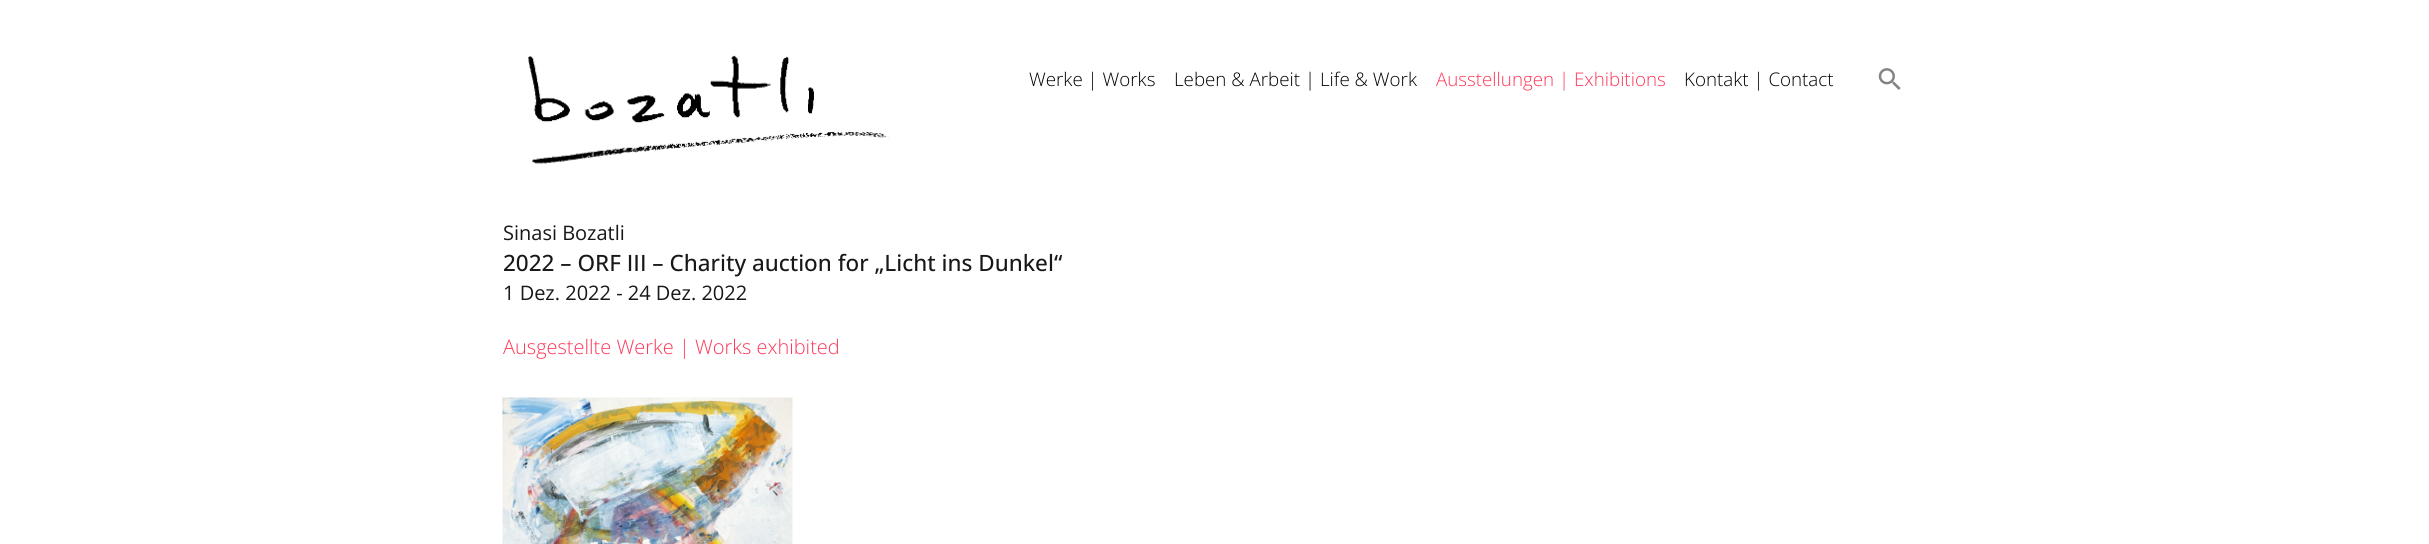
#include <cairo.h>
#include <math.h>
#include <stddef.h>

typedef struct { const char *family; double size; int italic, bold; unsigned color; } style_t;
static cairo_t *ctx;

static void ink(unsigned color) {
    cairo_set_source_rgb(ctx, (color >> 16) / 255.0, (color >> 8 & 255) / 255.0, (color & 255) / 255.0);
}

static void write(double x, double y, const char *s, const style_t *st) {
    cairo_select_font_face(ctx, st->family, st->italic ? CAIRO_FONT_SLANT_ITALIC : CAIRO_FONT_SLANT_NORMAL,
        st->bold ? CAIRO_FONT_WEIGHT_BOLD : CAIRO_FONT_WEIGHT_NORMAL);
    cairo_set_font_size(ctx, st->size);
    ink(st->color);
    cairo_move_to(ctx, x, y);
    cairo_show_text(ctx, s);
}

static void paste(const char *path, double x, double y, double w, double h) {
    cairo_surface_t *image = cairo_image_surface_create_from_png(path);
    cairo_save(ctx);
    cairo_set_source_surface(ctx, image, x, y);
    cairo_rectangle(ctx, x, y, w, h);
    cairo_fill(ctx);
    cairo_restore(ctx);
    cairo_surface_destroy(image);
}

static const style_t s1 = {"Open Sans Light", 18.75, 0, 0, 0x000000};
static const style_t s2 = {"Open Sans Light", 18.75, 0, 0, 0xff3657};
static const style_t s3 = {"Open Sans", 20, 0, 0, 0x181818};
static const style_t s4 = {"Open Sans Medium", 22.5, 0, 0, 0x181818};
static const style_t s5 = {"Open Sans Light", 20, 0, 0, 0xff3657};

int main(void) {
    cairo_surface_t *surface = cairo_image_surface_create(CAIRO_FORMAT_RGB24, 2429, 544);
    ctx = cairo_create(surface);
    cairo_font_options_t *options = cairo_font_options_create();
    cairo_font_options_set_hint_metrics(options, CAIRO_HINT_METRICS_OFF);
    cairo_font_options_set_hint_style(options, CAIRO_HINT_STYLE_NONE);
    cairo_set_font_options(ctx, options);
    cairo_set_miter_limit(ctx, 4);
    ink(0xffffff);
    cairo_paint(ctx);
    paste("pic1.png", 528, 55, 362, 109);
    write(1029, 86, "Werke | Works", &s1);
    write(1174, 86, "Leben & Arbeit | Life & Work", &s1);
    write(1436, 86, "Ausstellungen | Exhibitions", &s2);
    write(1684, 86, "Kontakt | Contact", &s1);
    paste("pic2.png", 1878, 68, 23, 22);
    write(503, 240, "Sinasi Bozatli", &s3);
    write(503, 271, "2022 – ORF III – Charity auction for „Licht ins Dunkel“", &s4);
    write(503, 300, "1 Dez. 2022 - 24 Dez. 2022", &s3);
    write(503, 354, "Ausgestellte Werke | Works exhibited", &s5);
    paste("pic3.png", 502, 397, 291, 147);
    cairo_surface_write_to_png(surface, "screenshot.png");
    cairo_font_options_destroy(options);
    cairo_destroy(ctx);
    cairo_surface_destroy(surface);
    return 0;
}
